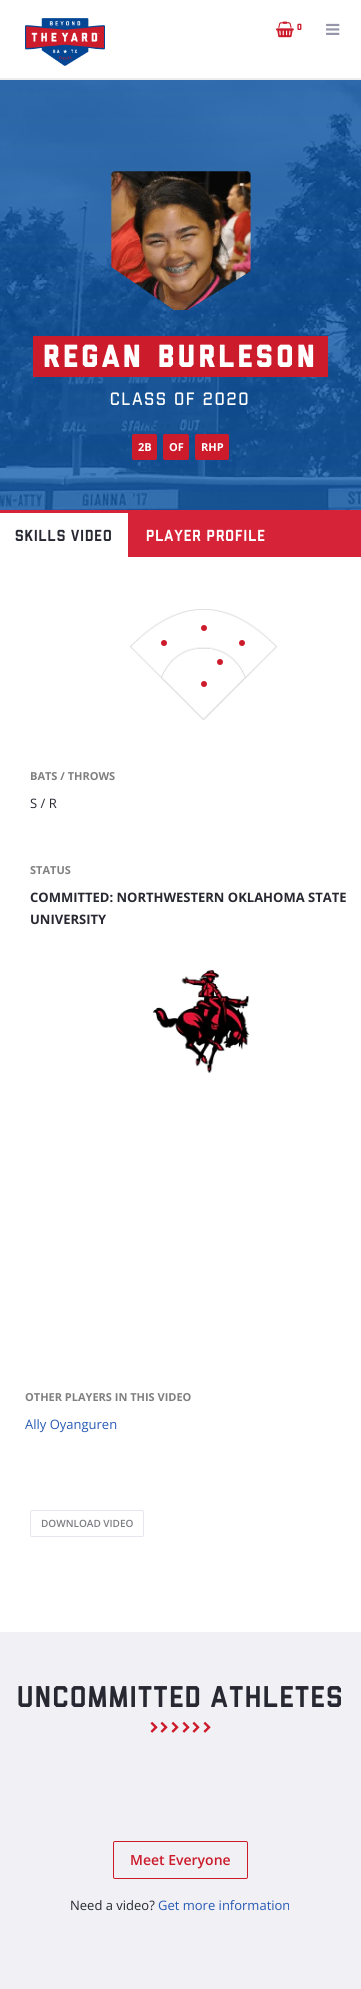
#include <cairo.h>
#include <math.h>
#include <stddef.h>

typedef struct { const char *family; double size; int italic, bold; unsigned color; } style_t;
static cairo_t *ctx;

static void ink(unsigned color) {
    cairo_set_source_rgb(ctx, (color >> 16) / 255.0, (color >> 8 & 255) / 255.0, (color & 255) / 255.0);
}

static void write(double x, double y, const char *s, const style_t *st) {
    cairo_select_font_face(ctx, st->family, st->italic ? CAIRO_FONT_SLANT_ITALIC : CAIRO_FONT_SLANT_NORMAL,
        st->bold ? CAIRO_FONT_WEIGHT_BOLD : CAIRO_FONT_WEIGHT_NORMAL);
    cairo_set_font_size(ctx, st->size);
    ink(st->color);
    cairo_move_to(ctx, x, y);
    cairo_show_text(ctx, s);
}

static void write_spaced(double x, double y, const char *s, double letter, double word) {
    cairo_move_to(ctx, x, y);
    while (*s) {
        char ch[5] = {0};
        int n = 0;
        do ch[n++] = *s++; while ((*s & 0xC0) == 0x80);
        cairo_show_text(ctx, ch);
        cairo_rel_move_to(ctx, letter + word * (*ch == ' '), 0);
    }
}

static void block(double x, double y, double w, double h, unsigned color) {
    ink(color);
    cairo_rectangle(ctx, x, y, w, h);
    cairo_fill(ctx);
}

static void round_path(double x, double y, double w, double h, double r) {
    cairo_new_sub_path(ctx);
    cairo_arc(ctx, x + w - r, y + h - r, r, 0, M_PI / 2);
    cairo_arc(ctx, x + r, y + h - r, r, M_PI / 2, M_PI);
    cairo_arc(ctx, x + r, y + r, r, M_PI, 1.5 * M_PI);
    cairo_arc(ctx, x + w - r, y + r, r, 1.5 * M_PI, 2 * M_PI);
    cairo_close_path(ctx);
}

static void paste(const char *path, double x, double y, double w, double h) {
    cairo_surface_t *image = cairo_image_surface_create_from_png(path);
    cairo_save(ctx);
    cairo_set_source_surface(ctx, image, x, y);
    cairo_rectangle(ctx, x, y, w, h);
    cairo_fill(ctx);
    cairo_restore(ctx);
    cairo_surface_destroy(image);
}

static const style_t s1 = {"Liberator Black", 9, 0, 0, 0xcc1b2b};
static const style_t s2 = {"Open Sans", 11, 0, 1, 0xffffff};
static const style_t s3 = {"Open Sans", 11, 0, 1, 0x808080};
static const style_t s4 = {"Open Sans", 13, 0, 0, 0x282832};
static const style_t s5 = {"Open Sans", 13, 0, 1, 0x282832};
static const style_t s6 = {"Open Sans", 13, 0, 0, 0x285ab4};
static const style_t s7 = {"Open Sans SemiBold", 10, 0, 0, 0x7d7d86};
static const style_t s8 = {"Open Sans SemiBold", 14, 0, 0, 0xcc1b2b};

int main(void) {
    cairo_surface_t *surface = cairo_image_surface_create(CAIRO_FORMAT_RGB24, 361, 1989);
    ctx = cairo_create(surface);
    cairo_font_options_t *options = cairo_font_options_create();
    cairo_font_options_set_hint_metrics(options, CAIRO_HINT_METRICS_OFF);
    cairo_font_options_set_hint_style(options, CAIRO_HINT_STYLE_NONE);
    cairo_set_font_options(ctx, options);
    cairo_set_miter_limit(ctx, 4);
    ink(0xf0f0f5);
    cairo_paint(ctx);
    block(0, 0, 361, 78, 0xffffff);
    block(0, 78, 361, 2, 0xededed);
    paste("pic1.png", 25, 18, 80, 48);
    paste("pic2.png", 276, 21, 18, 17);
    write(297, 30, "0", &s1);
    paste("pic3.png", 326, 23, 14, 12);
    paste("pic4.png", 0, 80, 361, 430);
    paste("pic5.png", 111, 171, 140, 139);
    block(33, 336, 295, 41, 0xcc1b2b);
    cairo_set_font_size(ctx, 32);
    ink(0xffffff);
    write_spaced(43, 367, "Regan Burleson", 3.25, 0);
    cairo_select_font_face(ctx, "Liberator Light", CAIRO_FONT_SLANT_NORMAL, CAIRO_FONT_WEIGHT_NORMAL);
    cairo_set_font_size(ctx, 18);
    write_spaced(110, 405, "Class of 2020", 2, 0);
    ink(0xcc1b2b);
    round_path(132, 434, 25, 26, 2);
    cairo_fill(ctx);
    write(138, 451, "2B", &s2);
    ink(0xcc1b2b);
    round_path(163, 434, 26, 26, 2);
    cairo_fill(ctx);
    write(169, 451, "OF", &s2);
    ink(0xcc1b2b);
    round_path(195, 434, 34, 26, 2);
    cairo_fill(ctx);
    write(201, 451, "RHP", &s2);
    block(0, 557, 361, 1075, 0xffffff);
    block(0, 510, 361, 47, 0xd72337);
    block(0, 513, 128, 44, 0xffffff);
    cairo_select_font_face(ctx, "Liberator Medium", CAIRO_FONT_SLANT_NORMAL, CAIRO_FONT_WEIGHT_NORMAL);
    cairo_set_font_size(ctx, 16);
    ink(0x282832);
    write_spaced(15, 541, "Skills Video", 1, 0);
    ink(0xffffff);
    write_spaced(146, 541, "Player Profile", 1, 0);
    paste("pic6.png", 130, 609, 147, 111);
    ink(0xcc1b2b);
    cairo_arc(ctx, 204, 628, 3, 0, 2 * M_PI);
    cairo_fill(ctx);
    cairo_arc(ctx, 164, 643, 3, 0, 2 * M_PI);
    cairo_fill(ctx);
    cairo_arc(ctx, 242, 643, 3, 0, 2 * M_PI);
    cairo_fill(ctx);
    cairo_arc(ctx, 220, 662, 3, 0, 2 * M_PI);
    cairo_fill(ctx);
    cairo_arc(ctx, 204, 684, 3, 0, 2 * M_PI);
    cairo_fill(ctx);
    write(30, 780, "BATS / THROWS", &s3);
    write(30, 808, "S / R", &s4);
    write(30, 874, "STATUS", &s3);
    write(30, 902, "COMMITTED: NORTHWESTERN OKLAHOMA STATE", &s5);
    write(30, 924, "UNIVERSITY", &s5);
    paste("pic7.png", 153, 969, 97, 104);
    write(25, 1401, "OTHER PLAYERS IN THIS VIDEO", &s3);
    write(25, 1429, "Ally Oyanguren", &s6);
    round_path(30.5, 1510.5, 113, 26, 1.5);
    ink(0xe6e6f0);
    cairo_set_line_width(ctx, 1);
    cairo_stroke(ctx);
    write(41, 1527, "DOWNLOAD VIDEO", &s7);
    cairo_select_font_face(ctx, "Liberator Medium", CAIRO_FONT_SLANT_NORMAL, CAIRO_FONT_WEIGHT_NORMAL);
    cairo_set_font_size(ctx, 30);
    ink(0x282832);
    write_spaced(17, 1707, "Uncommitted Athletes", 1.5, 0);
    paste("pic8.png", 150, 1721, 8, 12);
    paste("pic8.png", 160, 1721, 8, 12);
    paste("pic8.png", 171, 1721, 8, 12);
    paste("pic8.png", 182, 1721, 8, 12);
    paste("pic8.png", 192, 1721, 8, 12);
    paste("pic8.png", 203, 1721, 8, 12);
    round_path(113.5, 1841.5, 134, 37, 1.5);
    ink(0xcc1b2b);
    cairo_stroke(ctx);
    write(130, 1865, "Meet Everyone", &s8);
    write(70, 1910, "Need a video?", &s4);
    write(158, 1910, "Get more information", &s6);
    cairo_surface_write_to_png(surface, "screenshot.png");
    cairo_font_options_destroy(options);
    cairo_destroy(ctx);
    cairo_surface_destroy(surface);
    return 0;
}
